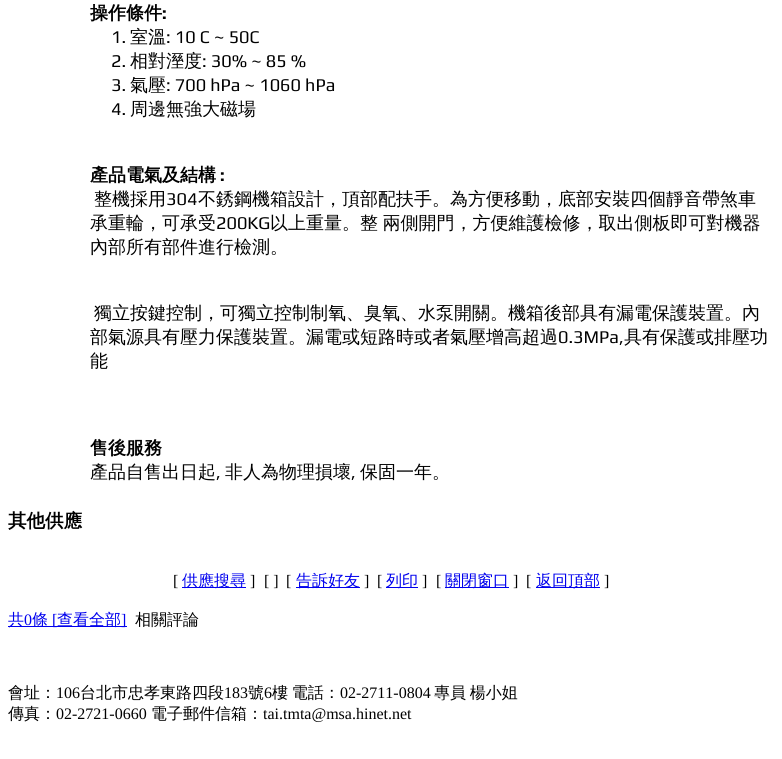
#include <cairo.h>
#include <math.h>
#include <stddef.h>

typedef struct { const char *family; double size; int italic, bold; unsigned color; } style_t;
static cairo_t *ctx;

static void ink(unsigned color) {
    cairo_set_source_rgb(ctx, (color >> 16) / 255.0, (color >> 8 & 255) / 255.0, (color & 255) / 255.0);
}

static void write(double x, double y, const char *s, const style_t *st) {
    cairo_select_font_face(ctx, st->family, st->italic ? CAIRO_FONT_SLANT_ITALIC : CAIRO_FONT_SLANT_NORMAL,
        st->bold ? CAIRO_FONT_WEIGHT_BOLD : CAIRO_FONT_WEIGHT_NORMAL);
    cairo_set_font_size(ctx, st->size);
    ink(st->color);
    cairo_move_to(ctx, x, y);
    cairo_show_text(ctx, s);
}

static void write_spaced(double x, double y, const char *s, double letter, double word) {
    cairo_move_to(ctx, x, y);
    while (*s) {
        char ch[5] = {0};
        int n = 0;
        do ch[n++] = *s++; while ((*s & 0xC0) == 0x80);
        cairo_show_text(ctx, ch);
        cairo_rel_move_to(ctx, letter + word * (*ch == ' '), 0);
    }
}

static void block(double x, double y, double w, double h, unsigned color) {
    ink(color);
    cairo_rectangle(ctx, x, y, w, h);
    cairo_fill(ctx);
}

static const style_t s1 = {"WenQuanYi Zen Hei", 18, 0, 1, 0x000000};
static const style_t s2 = {"Play", 18, 0, 1, 0x000000};
static const style_t s3 = {"Play", 18, 0, 0, 0x000000};
static const style_t s4 = {"WenQuanYi Zen Hei Medium", 18, 0, 0, 0x000000};
static const style_t s5 = {"WenQuanYi Zen Hei", 18.5, 0, 1, 0x000000};
static const style_t s6 = {"Liberation Serif", 16, 0, 0, 0x000000};
static const style_t s7 = {"WenQuanYi Zen Hei Medium", 16, 0, 0, 0x0000ee};
static const style_t s8 = {"Liberation Serif", 16, 0, 0, 0x0000ee};
static const style_t s9 = {"WenQuanYi Zen Hei Medium", 16, 0, 0, 0x000000};

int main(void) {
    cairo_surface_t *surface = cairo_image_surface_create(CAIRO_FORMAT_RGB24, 782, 759);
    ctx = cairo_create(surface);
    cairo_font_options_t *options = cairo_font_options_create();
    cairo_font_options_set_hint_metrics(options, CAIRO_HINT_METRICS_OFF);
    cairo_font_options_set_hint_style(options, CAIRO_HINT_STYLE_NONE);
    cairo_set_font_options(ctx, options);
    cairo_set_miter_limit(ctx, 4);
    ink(0xffffff);
    cairo_paint(ctx);
    write(90, 19, "操作條件", &s1);
    write(162, 19, ":", &s2);
    write(111, 43, "1.", &s3);
    write(130, 43, "室溫", &s4);
    write(166, 43, ": 10 C ~ 50C", &s3);
    write(111, 67, "2.", &s3);
    write(130, 67, "相對溼度", &s4);
    write(202, 67, ": 30% ~ 85 %", &s3);
    write(111, 91, "3.", &s3);
    write(130, 91, "氣壓", &s4);
    write(166, 91, ": 700 hPa ~ 1060 hPa", &s3);
    write(111, 115, "4.", &s3);
    write(130, 115, "周邊無強大磁場", &s4);
    write(90, 181, "產品電氣及結構", &s1);
    write(220, 181, ":", &s2);
    write(94, 205, "整機採用", &s4);
    write(166, 205, "304", &s3);
    write(198, 205, "不銹鋼機箱設計，頂部配扶手。為方便移動，底部安裝四個靜音帶煞車", &s4);
    write(90, 229, "承重輪，可承受", &s4);
    write(216, 229, "200KG", &s3);
    cairo_select_font_face(ctx, "WenQuanYi Zen Hei Medium", CAIRO_FONT_SLANT_NORMAL, CAIRO_FONT_WEIGHT_NORMAL);
    write_spaced(270, 229, "以上重量。整 兩側開門，方便維護檢修，取出側板即可對機器", 0, -1);
    write(90, 253, "內部所有部件進行檢測。", &s4);
    write(94, 319, "獨立按鍵控制，可獨立控制制氧、臭氧、水泵開關。機箱後部具有漏電保護裝置。內", &s4);
    write(90, 343, "部氣源具有壓力保護裝置。漏電或短路時或者氣壓增高超過", &s4);
    write(558, 343, "0.3MPa,", &s3);
    write(624, 343, "具有保護或排壓功", &s4);
    write(90, 367, "能", &s4);
    write(90, 454, "售後服務", &s1);
    write(90, 478, "產品自售出日起", &s4);
    write(216, 478, ",", &s3);
    write(225, 478, "非人為物理損壞", &s4);
    write(351, 478, ",", &s3);
    write(360, 478, "保固一年。", &s4);
    write(8, 527, "其他供應", &s5);
    write(173, 586, "[", &s6);
    block(182, 587, 64, 1, 0x0000ee);
    write(182, 586, "供應搜尋", &s7);
    write(250, 586, "]", &s6);
    write(264, 586, "[ ]", &s6);
    write(286, 586, "[", &s6);
    block(296, 587, 64, 1, 0x0000ee);
    write(296, 586, "告訴好友", &s7);
    write(364, 586, "]", &s6);
    write(377, 586, "[", &s6);
    block(386, 587, 32, 1, 0x0000ee);
    write(386, 586, "列印", &s7);
    write(422, 586, "]", &s6);
    write(436, 586, "[", &s6);
    block(445, 587, 64, 1, 0x0000ee);
    write(445, 586, "關閉窗口", &s7);
    write(513, 586, "]", &s6);
    write(526, 586, "[", &s6);
    block(536, 587, 64, 1, 0x0000ee);
    write(536, 586, "返回頂部", &s7);
    write(604, 586, "]", &s6);
    block(8, 626, 119, 1, 0x0000ee);
    write(8, 625, "共", &s7);
    write(24, 625, "0", &s8);
    write(32, 625, "條", &s7);
    write(52, 625, "[", &s8);
    write(57, 625, "查看全部", &s7);
    write(121, 625, "]", &s8);
    write(135, 625, "相關評論", &s9);
    write(8, 698, "會址：", &s9);
    write(56, 698, "106", &s6);
    write(80, 698, "台北市忠孝東路四段", &s9);
    write(224, 698, "183", &s6);
    write(248, 698, "號", &s9);
    write(264, 698, "6", &s6);
    cairo_select_font_face(ctx, "WenQuanYi Zen Hei Medium", CAIRO_FONT_SLANT_NORMAL, CAIRO_FONT_WEIGHT_NORMAL);
    write_spaced(272, 698, "樓 電話：", 0, -1);
    write(340, 698, "02-2711-0804", &s6);
    cairo_select_font_face(ctx, "WenQuanYi Zen Hei Medium", CAIRO_FONT_SLANT_NORMAL, CAIRO_FONT_WEIGHT_NORMAL);
    write_spaced(434, 698, "專員 楊小姐", 0, -1);
    write(8, 719, "傳真：", &s9);
    write(56, 719, "02-2721-0660", &s6);
    write(151, 719, "電子郵件信箱：", &s9);
    write(263, 719, "tai.tmta@msa.hinet.net", &s6);
    cairo_surface_write_to_png(surface, "screenshot.png");
    cairo_font_options_destroy(options);
    cairo_destroy(ctx);
    cairo_surface_destroy(surface);
    return 0;
}
